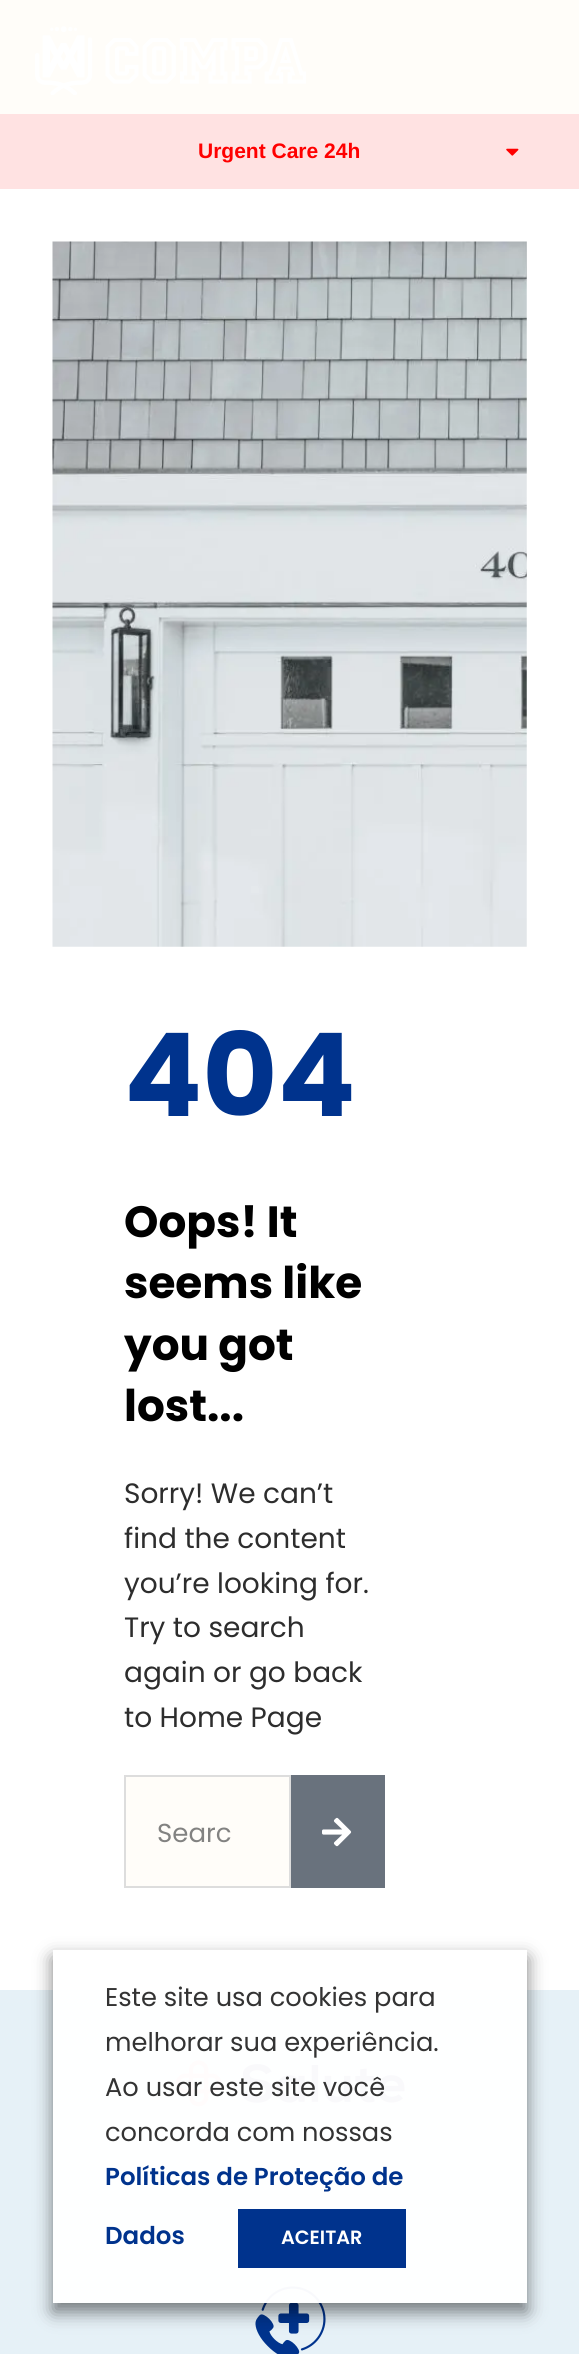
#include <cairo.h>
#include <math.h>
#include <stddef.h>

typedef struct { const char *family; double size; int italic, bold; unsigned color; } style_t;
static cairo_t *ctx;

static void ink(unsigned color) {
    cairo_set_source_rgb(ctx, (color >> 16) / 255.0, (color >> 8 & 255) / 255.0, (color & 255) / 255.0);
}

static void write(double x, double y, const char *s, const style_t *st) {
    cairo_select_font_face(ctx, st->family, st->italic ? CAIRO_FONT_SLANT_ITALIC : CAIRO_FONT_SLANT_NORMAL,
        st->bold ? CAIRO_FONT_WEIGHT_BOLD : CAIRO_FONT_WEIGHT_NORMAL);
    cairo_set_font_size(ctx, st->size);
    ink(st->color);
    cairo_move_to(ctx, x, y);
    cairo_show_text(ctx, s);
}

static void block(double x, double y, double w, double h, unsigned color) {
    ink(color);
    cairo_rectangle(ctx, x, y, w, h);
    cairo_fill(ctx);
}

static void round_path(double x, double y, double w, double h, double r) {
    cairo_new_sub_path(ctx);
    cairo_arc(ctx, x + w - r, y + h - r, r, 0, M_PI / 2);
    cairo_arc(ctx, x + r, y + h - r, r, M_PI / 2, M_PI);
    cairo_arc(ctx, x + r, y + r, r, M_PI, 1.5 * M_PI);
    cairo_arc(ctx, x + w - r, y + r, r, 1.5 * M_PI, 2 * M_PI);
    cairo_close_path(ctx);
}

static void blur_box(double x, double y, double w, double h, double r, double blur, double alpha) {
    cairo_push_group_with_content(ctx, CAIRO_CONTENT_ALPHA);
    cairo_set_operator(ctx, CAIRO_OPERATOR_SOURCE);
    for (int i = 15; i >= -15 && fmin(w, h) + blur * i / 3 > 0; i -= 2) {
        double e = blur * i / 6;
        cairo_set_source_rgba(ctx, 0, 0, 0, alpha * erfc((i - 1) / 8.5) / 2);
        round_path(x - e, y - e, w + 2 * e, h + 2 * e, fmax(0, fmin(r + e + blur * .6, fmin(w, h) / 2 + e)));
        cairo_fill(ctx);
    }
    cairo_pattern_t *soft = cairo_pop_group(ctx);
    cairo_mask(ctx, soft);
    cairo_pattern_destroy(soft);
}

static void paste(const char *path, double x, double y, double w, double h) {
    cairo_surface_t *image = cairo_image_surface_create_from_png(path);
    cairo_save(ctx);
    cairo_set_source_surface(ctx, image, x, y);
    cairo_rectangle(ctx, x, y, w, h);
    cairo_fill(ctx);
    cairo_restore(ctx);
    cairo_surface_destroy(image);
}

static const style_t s1 = {"Liberation Sans", 21, 0, 1, 0xff0000};
static const style_t s2 = {"Poppins", 115.5, 0, 1, 0x00338d};
static const style_t s3 = {"Poppins", 43.75, 0, 1, 0x000000};
static const style_t s4 = {"Poppins", 28, 0, 0, 0x2d2d2d};
static const style_t s5 = {"Poppins", 26, 0, 0, 0x828281};
static const style_t s6 = {"Poppins", 25.7, 0, 0, 0x333333};
static const style_t s7 = {"Poppins SemiBold", 24.5, 0, 0, 0x00338d};
static const style_t s8 = {"Poppins SemiBold", 19.25, 0, 0, 0xffffff};

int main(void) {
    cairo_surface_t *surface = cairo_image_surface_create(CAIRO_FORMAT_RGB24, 579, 2354);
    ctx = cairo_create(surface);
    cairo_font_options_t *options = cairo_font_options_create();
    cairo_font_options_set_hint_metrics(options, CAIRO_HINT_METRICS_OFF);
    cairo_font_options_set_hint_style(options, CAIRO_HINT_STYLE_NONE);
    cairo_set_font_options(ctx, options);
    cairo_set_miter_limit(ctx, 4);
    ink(0xffffff);
    cairo_paint(ctx);
    block(0, 0, 579, 114, 0xfffdf9);
    paste("pic1.png", 35, 26, 271, 69);
    block(4, 118, 572, 66, 0xffe2e2);
    block(0, 114, 579, 4, 0xffe2e2);
    block(576, 114, 3, 75, 0xffe2e2);
    block(0, 184, 579, 5, 0xffe2e2);
    block(0, 114, 4, 75, 0xffe2e2);
    write(198, 158, "Urgent Care 24h", &s1);
    paste("pic2.png", 506, 148, 13, 8);
    paste("pic3.png", 52, 241, 475, 706);
    write(124, 1116, "404", &s2);
    write(124, 1237, "Oops! It", &s3);
    write(124, 1298, "seems like", &s3);
    write(124, 1360, "you got", &s3);
    write(124, 1421, "lost...", &s3);
    write(124, 1503, "Sorry! We can’t", &s4);
    write(124, 1548, "find the content", &s4);
    write(124, 1593, "you’re looking for.", &s4);
    write(124, 1637, "Try to search", &s4);
    write(124, 1682, "again or go back", &s4);
    write(124, 1727, "to Home Page", &s4);
    ink(0xfffdf9);
    cairo_rectangle(ctx, 125, 1776, 165, 111);
    cairo_fill_preserve(ctx);
    ink(0xdddddd);
    cairo_stroke(ctx);
    write(157, 1842, "Searc", &s5);
    block(291, 1775, 94, 113, 0x69727d);
    paste("pic4.png", 322, 1817, 30, 30);
    block(0, 1990, 579, 364, 0xe6f1f7);
    paste("pic5.png", 175, 2060, 230, 47);
    paste("pic6.png", 255, 2286, 71, 68);
    cairo_save(ctx);
    cairo_set_fill_rule(ctx, CAIRO_FILL_RULE_EVEN_ODD);
    cairo_new_path(ctx);
    cairo_move_to(ctx, 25, 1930);
    cairo_line_to(ctx, 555, 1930);
    cairo_line_to(ctx, 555, 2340);
    cairo_line_to(ctx, 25, 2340);
    cairo_close_path(ctx);
    cairo_move_to(ctx, 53, 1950);
    cairo_line_to(ctx, 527, 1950);
    cairo_line_to(ctx, 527, 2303);
    cairo_line_to(ctx, 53, 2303);
    cairo_close_path(ctx);
    cairo_clip(ctx);
    ink(0x000000);
    blur_box(53, 1958, 474, 354, 0, 9, 0.5);
    cairo_restore(ctx);
    cairo_set_source_rgba(ctx, 1, 1, 1, 0.97);
    cairo_rectangle(ctx, 53, 1950, 474, 353);
    cairo_fill(ctx);
    write(105, 2006, "Este site usa cookies para", &s6);
    write(105, 2051, "melhorar sua experiência.", &s6);
    write(105, 2096, "Ao usar este site você", &s6);
    write(105, 2141, "concorda com nossas", &s6);
    write(105, 2185, "Políticas de Proteção de", &s7);
    write(105, 2244, "Dados", &s7);
    block(238, 2209, 168, 59, 0x00338d);
    write(281, 2244, "ACEITAR", &s8);
    cairo_surface_write_to_png(surface, "screenshot.png");
    cairo_font_options_destroy(options);
    cairo_destroy(ctx);
    cairo_surface_destroy(surface);
    return 0;
}
